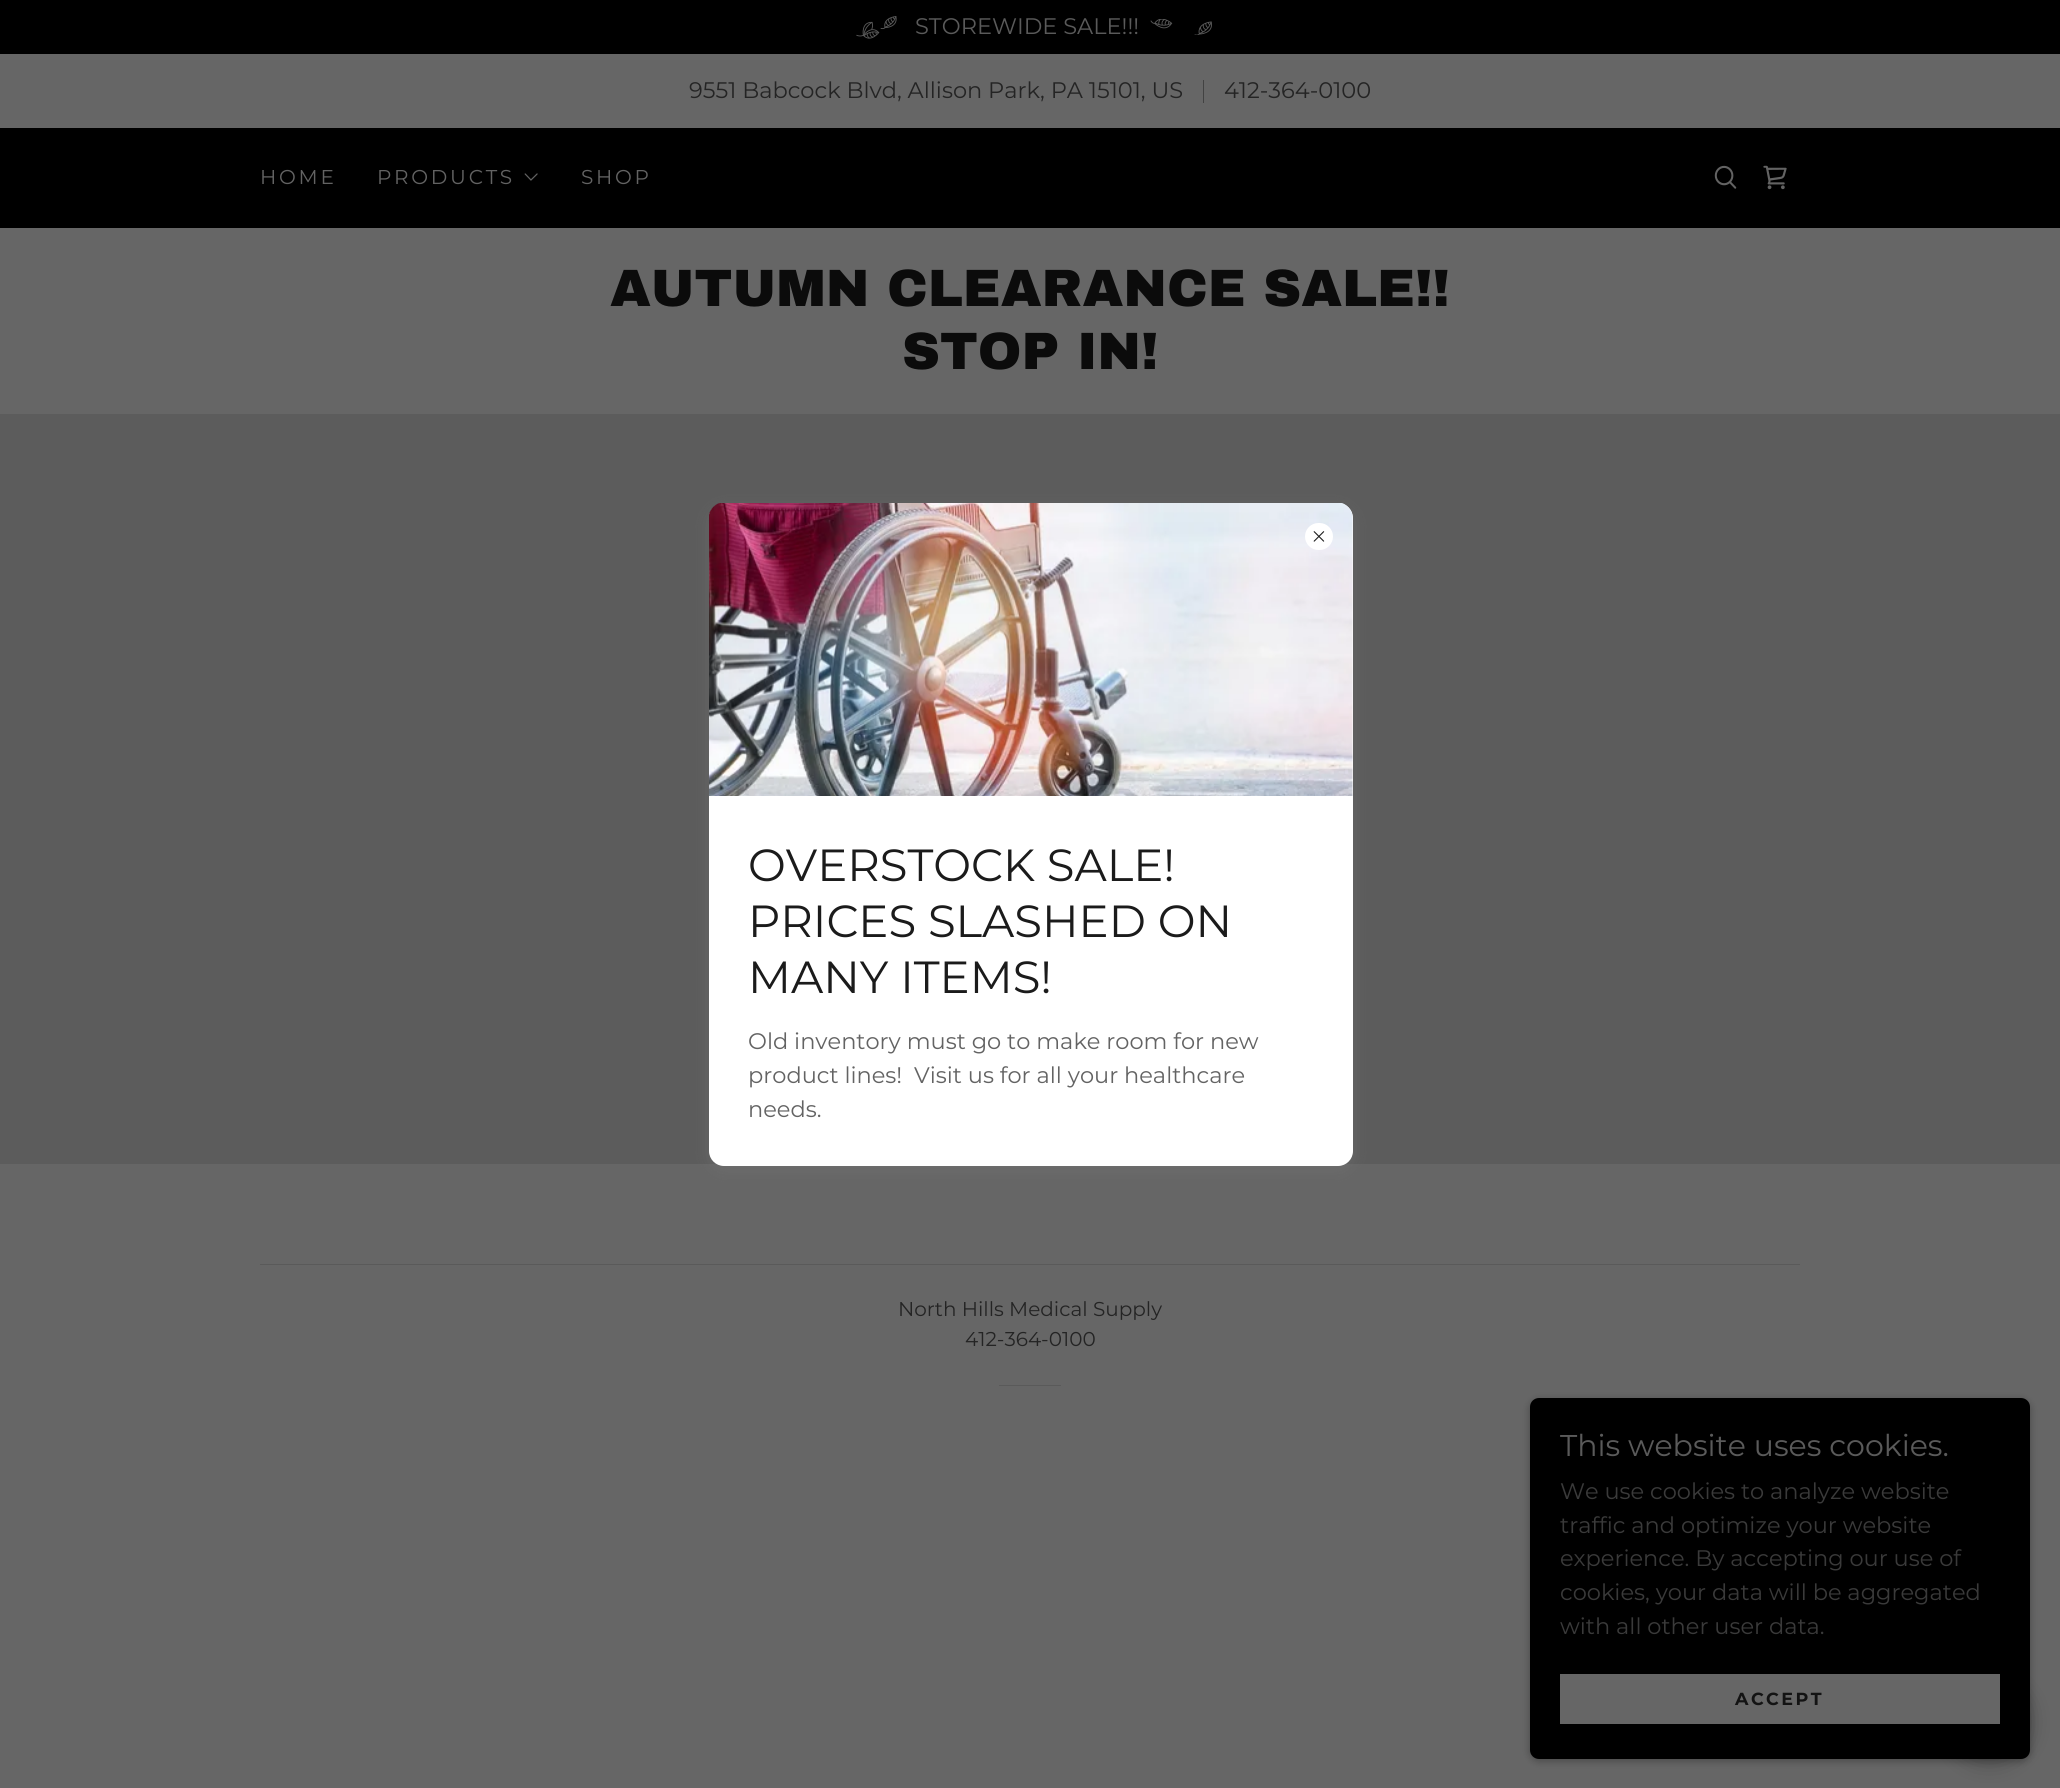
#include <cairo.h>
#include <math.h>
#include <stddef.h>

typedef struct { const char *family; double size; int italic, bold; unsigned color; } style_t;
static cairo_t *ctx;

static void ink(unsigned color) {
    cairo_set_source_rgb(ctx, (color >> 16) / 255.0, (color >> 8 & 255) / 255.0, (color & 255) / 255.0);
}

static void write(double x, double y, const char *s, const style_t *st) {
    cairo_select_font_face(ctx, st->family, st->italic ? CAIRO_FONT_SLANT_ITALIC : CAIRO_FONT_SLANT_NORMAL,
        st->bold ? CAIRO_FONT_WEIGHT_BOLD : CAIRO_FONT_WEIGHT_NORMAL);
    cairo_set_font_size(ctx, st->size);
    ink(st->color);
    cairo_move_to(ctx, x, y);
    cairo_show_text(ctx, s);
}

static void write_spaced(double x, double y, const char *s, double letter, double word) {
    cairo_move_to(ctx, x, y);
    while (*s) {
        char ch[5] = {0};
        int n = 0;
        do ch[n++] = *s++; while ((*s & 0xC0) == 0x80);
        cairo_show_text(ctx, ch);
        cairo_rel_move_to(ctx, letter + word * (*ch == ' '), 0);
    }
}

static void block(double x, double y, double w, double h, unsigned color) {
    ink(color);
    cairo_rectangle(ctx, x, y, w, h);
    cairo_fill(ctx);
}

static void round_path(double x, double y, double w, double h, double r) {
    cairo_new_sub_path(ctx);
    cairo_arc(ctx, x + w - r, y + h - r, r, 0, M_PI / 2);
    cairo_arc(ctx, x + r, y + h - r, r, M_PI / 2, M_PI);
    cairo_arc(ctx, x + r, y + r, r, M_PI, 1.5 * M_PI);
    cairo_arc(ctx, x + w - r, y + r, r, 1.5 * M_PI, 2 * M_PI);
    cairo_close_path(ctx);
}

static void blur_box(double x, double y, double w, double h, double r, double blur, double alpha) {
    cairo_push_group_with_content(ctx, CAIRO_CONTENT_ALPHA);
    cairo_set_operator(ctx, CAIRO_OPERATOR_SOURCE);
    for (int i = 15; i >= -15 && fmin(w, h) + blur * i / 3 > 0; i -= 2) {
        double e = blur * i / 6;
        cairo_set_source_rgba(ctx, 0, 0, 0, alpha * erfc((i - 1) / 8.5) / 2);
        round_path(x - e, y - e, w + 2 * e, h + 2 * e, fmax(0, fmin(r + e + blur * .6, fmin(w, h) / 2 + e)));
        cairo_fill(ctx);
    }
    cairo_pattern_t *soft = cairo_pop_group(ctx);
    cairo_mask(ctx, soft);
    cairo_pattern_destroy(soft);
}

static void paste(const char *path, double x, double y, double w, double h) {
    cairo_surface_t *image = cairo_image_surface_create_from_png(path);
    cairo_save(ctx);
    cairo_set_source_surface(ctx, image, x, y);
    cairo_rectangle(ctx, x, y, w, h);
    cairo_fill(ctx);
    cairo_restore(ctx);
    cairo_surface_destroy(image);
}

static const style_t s1 = {"Montserrat", 22.5, 0, 0, 0x5a5a5a};
static const style_t s2 = {"Montserrat", 22.5, 0, 0, 0x242424};
static const style_t s3 = {"Archivo Black Black", 52.5, 0, 0, 0x0b0b0b};
static const style_t s4 = {"Montserrat", 45, 0, 0, 0x1b1b1b};
static const style_t s5 = {"Montserrat", 22.5, 0, 0, 0x636363};
static const style_t s6 = {"Montserrat", 20, 0, 0, 0x242424};
static const style_t s7 = {"Montserrat", 30, 0, 0, 0x5a5a5a};
static const style_t s8 = {"Montserrat", 22.5, 0, 0, 0x3a3a3a};

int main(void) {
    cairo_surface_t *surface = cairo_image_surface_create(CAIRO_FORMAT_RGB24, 2060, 1788);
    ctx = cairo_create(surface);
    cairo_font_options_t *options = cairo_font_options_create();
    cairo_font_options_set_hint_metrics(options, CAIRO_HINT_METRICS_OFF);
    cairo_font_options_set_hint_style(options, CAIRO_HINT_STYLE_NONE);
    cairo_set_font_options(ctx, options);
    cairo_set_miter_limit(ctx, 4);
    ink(0x666666);
    cairo_paint(ctx);
    block(0, 0, 2060, 54, 0x000000);
    paste("pic1.png", 856, 16, 41, 23);
    write(915, 34, "STOREWIDE SALE!!!", &s1);
    paste("pic2.png", 1150, 19, 62, 16);
    write(689, 98, "9551 Babcock Blvd, Allison Park, PA 15101, US", &s2);
    block(1203, 80, 1, 23, 0x424242);
    write(1224, 98, "412-364-0100", &s2);
    block(0, 128, 2060, 100, 0x000000);
    cairo_set_font_size(ctx, 20);
    ink(0x636363);
    write_spaced(260, 184, "HOME", 2.75, 0);
    write_spaced(377, 184, "PRODUCTS", 2.75, 0);
    paste("pic3.png", 524, 173, 14, 8);
    write_spaced(581, 184, "SHOP", 2.75, 0);
    paste("pic4.png", 1714, 165, 23, 24);
    paste("pic5.png", 1763, 165, 24, 25);
    write(610, 306, "AUTUMN CLEARANCE SALE!!", &s3);
    write(902, 369, "STOP IN!", &s3);
    block(0, 414, 2060, 375, 0x5c5c5c);
    block(0, 789, 717, 375, 0x5c5c5c);
    block(1345, 789, 715, 375, 0x5c5c5c);
    ink(0x757575);
    blur_box(709, 508, 644, 663, 15, 7.5, 0.4);
    ink(0xffffff);
    round_path(709, 503, 644, 663, 15);
    cairo_fill(ctx);
    paste("pic7.png", 709, 503, 644, 293);
    round_path(1305, 523, 28, 27, 13.5);
    cairo_fill(ctx);
    paste("pic6.png", 1313, 531, 12, 11);
    write(748, 881, "OVERSTOCK SALE!", &s4);
    write(748, 937, "PRICES SLASHED ON", &s4);
    write(748, 993, "MANY ITEMS!", &s4);
    write(748, 1049, "Old inventory must go to make room for new", &s5);
    write(748, 1083, "product lines!  Visit us for all your healthcare", &s5);
    write(748, 1117, "needs.", &s5);
    block(260, 1264, 1540, 1, 0x5a5a5a);
    write(898, 1316, "North Hills Medical Supply", &s6);
    write(965, 1346, "412-364-0100", &s6);
    block(999, 1385, 62, 1, 0x5a5a5a);
    ink(0x000000);
    blur_box(1530, 1400, 500, 361, 9, 4, 0.3);
    blur_box(1949, 1681, 81, 82, 40.5, 11, 0.25);
    ink(0x000000);
    round_path(1530, 1398, 500, 361, 9);
    cairo_fill(ctx);
    write(1560, 1456, "This website uses cookies.", &s7);
    write(1560, 1499, "We use cookies to analyze website", &s8);
    write(1560, 1533, "traffic and optimize your website", &s8);
    write(1560, 1566, "experience. By accepting our use of", &s8);
    write(1560, 1600, "cookies, your data will be aggregated", &s8);
    write(1560, 1634, "with all other user data.", &s8);
    block(1560, 1674, 440, 50, 0x666666);
    cairo_select_font_face(ctx, "Montserrat", CAIRO_FONT_SLANT_NORMAL, CAIRO_FONT_WEIGHT_BOLD);
    cairo_set_font_size(ctx, 17.5);
    ink(0x131313);
    write_spaced(1735, 1705, "ACCEPT", 2.5, 0);
    cairo_surface_write_to_png(surface, "screenshot.png");
    cairo_font_options_destroy(options);
    cairo_destroy(ctx);
    cairo_surface_destroy(surface);
    return 0;
}
